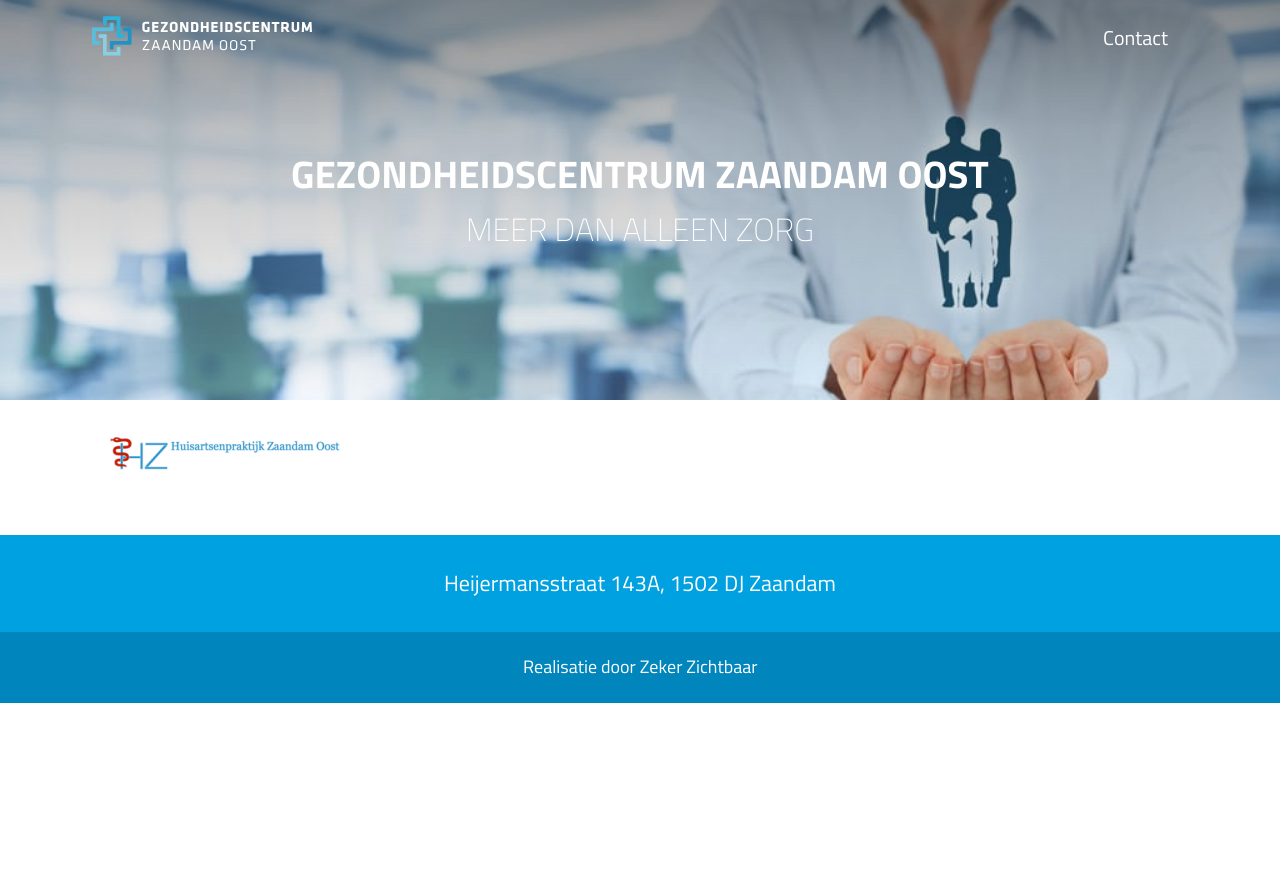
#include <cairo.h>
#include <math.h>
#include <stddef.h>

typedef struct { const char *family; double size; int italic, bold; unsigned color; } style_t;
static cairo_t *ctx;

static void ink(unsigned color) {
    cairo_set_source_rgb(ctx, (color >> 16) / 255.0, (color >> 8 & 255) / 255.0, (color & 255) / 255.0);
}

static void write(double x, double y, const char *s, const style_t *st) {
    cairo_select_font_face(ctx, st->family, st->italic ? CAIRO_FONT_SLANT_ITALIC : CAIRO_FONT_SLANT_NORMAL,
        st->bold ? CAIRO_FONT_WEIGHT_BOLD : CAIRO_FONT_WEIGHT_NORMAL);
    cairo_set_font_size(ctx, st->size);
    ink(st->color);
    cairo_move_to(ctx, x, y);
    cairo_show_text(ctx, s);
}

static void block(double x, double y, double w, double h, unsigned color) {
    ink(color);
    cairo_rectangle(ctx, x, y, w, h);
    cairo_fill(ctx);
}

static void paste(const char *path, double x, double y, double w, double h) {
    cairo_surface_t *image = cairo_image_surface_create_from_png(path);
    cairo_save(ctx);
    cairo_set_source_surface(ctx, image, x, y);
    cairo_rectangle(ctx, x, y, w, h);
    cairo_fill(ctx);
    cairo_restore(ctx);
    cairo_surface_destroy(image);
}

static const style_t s1 = {"Titillium Web", 20, 0, 0, 0xffffff};
static const style_t s2 = {"Titillium Web", 38.4, 0, 1, 0xffffff};
static const style_t s3 = {"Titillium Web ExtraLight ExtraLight", 32, 0, 0, 0xffffff};
static const style_t s4 = {"Titillium Web", 22, 0, 0, 0xffffff};
static const style_t s5 = {"Titillium Web", 18, 0, 0, 0xffffff};

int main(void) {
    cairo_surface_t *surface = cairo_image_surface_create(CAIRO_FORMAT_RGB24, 1280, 874);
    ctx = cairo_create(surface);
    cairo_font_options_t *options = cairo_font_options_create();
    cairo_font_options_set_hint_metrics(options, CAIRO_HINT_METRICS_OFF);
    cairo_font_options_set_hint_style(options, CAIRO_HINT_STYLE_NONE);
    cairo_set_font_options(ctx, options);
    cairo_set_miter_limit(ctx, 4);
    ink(0xffffff);
    cairo_paint(ctx);
    paste("pic2.png", 0, 0, 1280, 400);
    paste("pic1.png", 92, 16, 220, 40);
    write(1103, 45, "Contact", &s1);
    write(291, 188, "GEZONDHEIDSCENTRUM ZAANDAM OOST", &s2);
    write(466, 241, "MEER DAN ALLEEN ZORG", &s3);
    paste("pic3.png", 109, 437, 231, 34);
    block(0, 535, 1280, 97, 0x00a1e1);
    write(444, 591, "Heijermansstraat 143A, 1502 DJ Zaandam", &s4);
    block(0, 632, 1280, 71, 0x0086bc);
    write(523, 673, "Realisatie door Zeker Zichtbaar", &s5);
    cairo_surface_write_to_png(surface, "screenshot.png");
    cairo_font_options_destroy(options);
    cairo_destroy(ctx);
    cairo_surface_destroy(surface);
    return 0;
}
